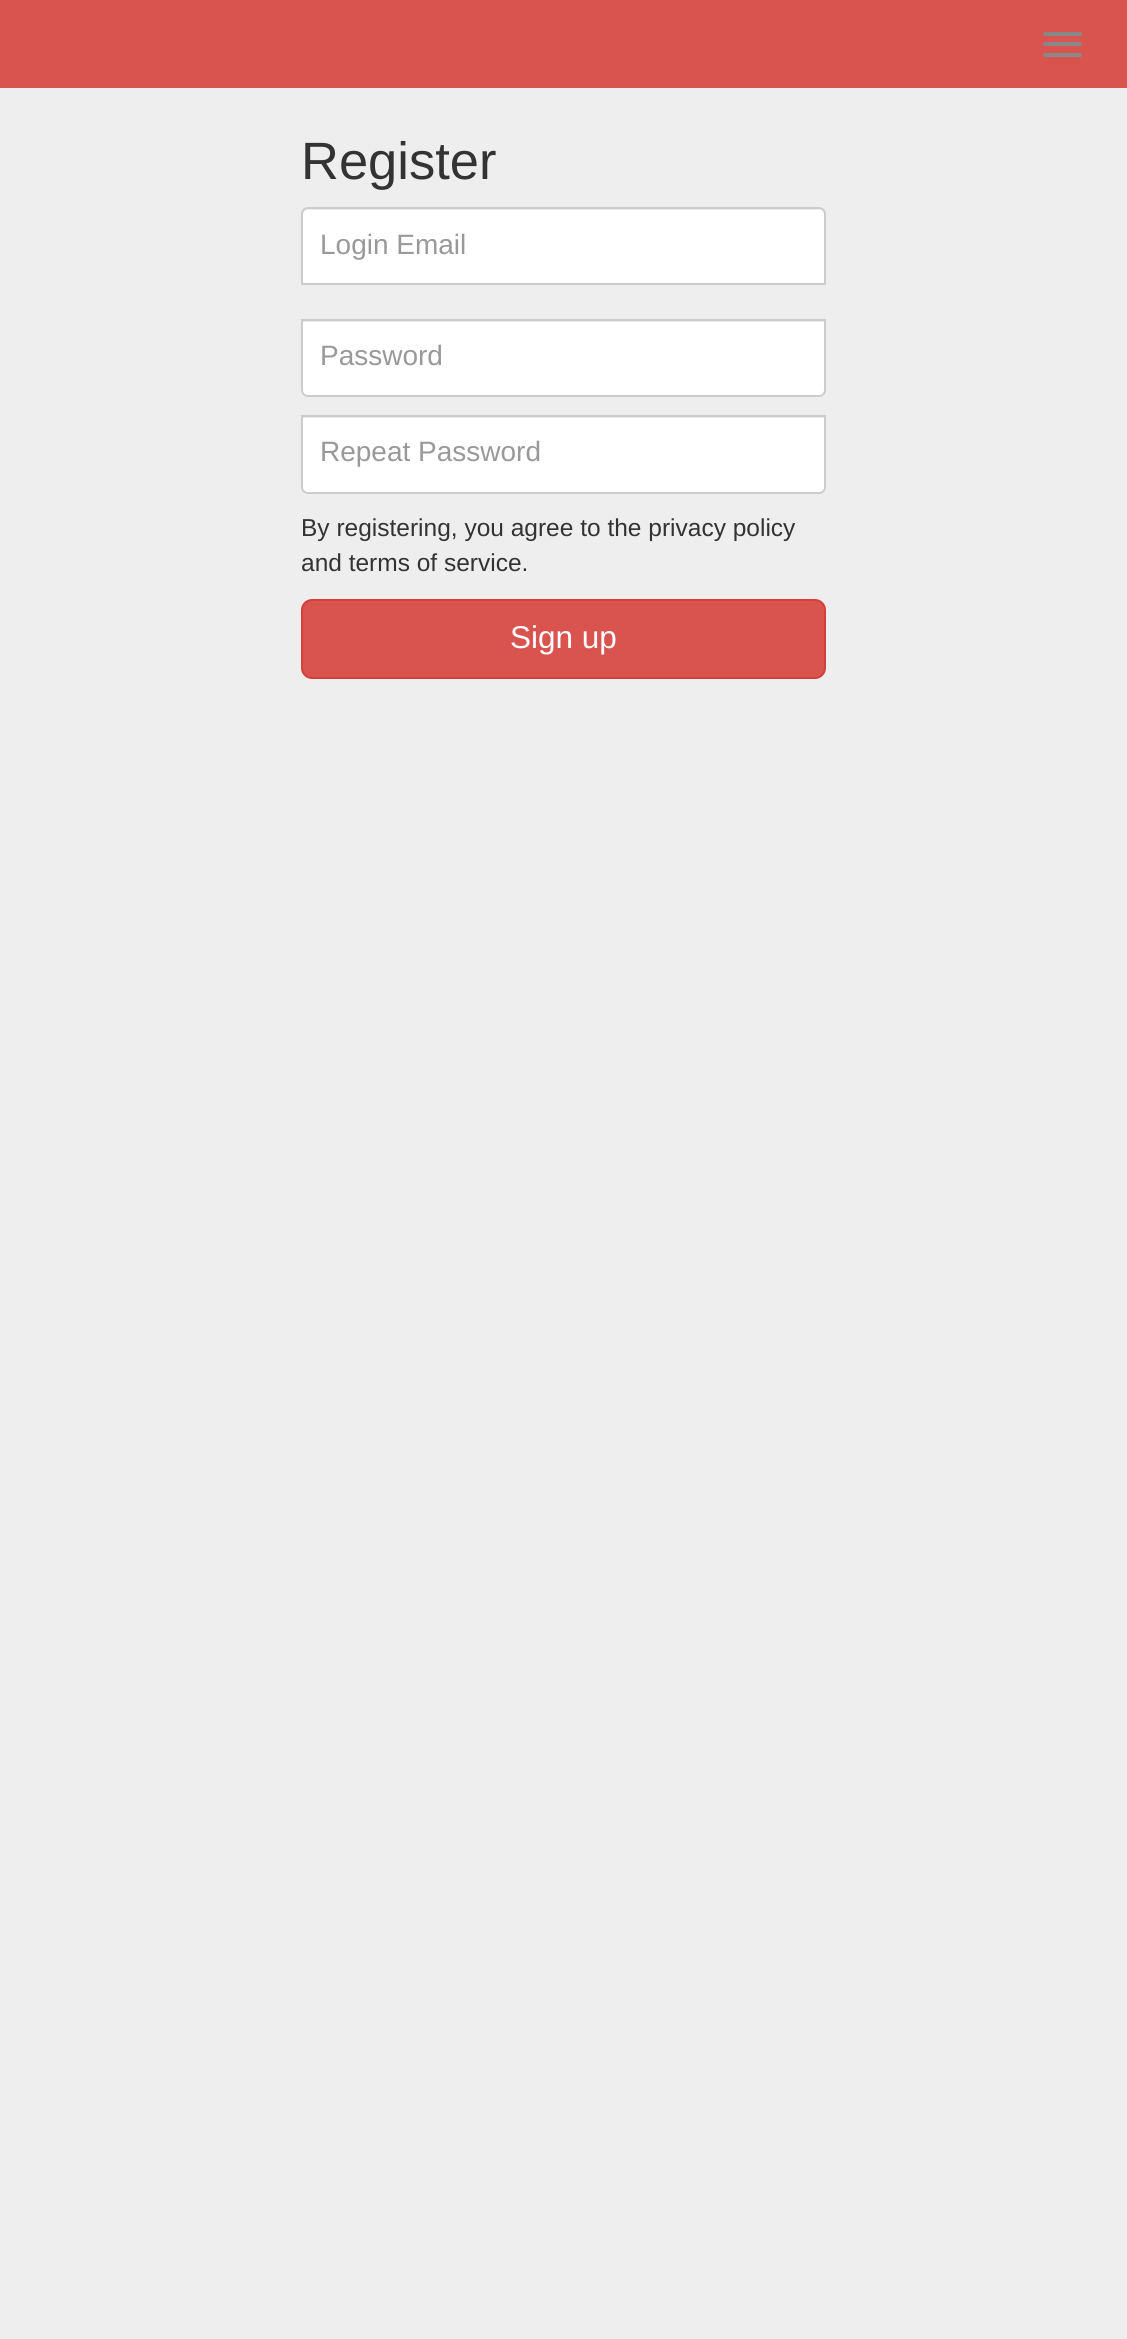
#include <cairo.h>
#include <math.h>
#include <stddef.h>

typedef struct { const char *family; double size; int italic, bold; unsigned color; } style_t;
static cairo_t *ctx;

static void ink(unsigned color) {
    cairo_set_source_rgb(ctx, (color >> 16) / 255.0, (color >> 8 & 255) / 255.0, (color & 255) / 255.0);
}

static void write(double x, double y, const char *s, const style_t *st) {
    cairo_select_font_face(ctx, st->family, st->italic ? CAIRO_FONT_SLANT_ITALIC : CAIRO_FONT_SLANT_NORMAL,
        st->bold ? CAIRO_FONT_WEIGHT_BOLD : CAIRO_FONT_WEIGHT_NORMAL);
    cairo_set_font_size(ctx, st->size);
    ink(st->color);
    cairo_move_to(ctx, x, y);
    cairo_show_text(ctx, s);
}

static void block(double x, double y, double w, double h, unsigned color) {
    ink(color);
    cairo_rectangle(ctx, x, y, w, h);
    cairo_fill(ctx);
}

static void round_path(double x, double y, double w, double h, double r) {
    cairo_new_sub_path(ctx);
    cairo_arc(ctx, x + w - r, y + h - r, r, 0, M_PI / 2);
    cairo_arc(ctx, x + r, y + h - r, r, M_PI / 2, M_PI);
    cairo_arc(ctx, x + r, y + r, r, M_PI, 1.5 * M_PI);
    cairo_arc(ctx, x + w - r, y + r, r, 1.5 * M_PI, 2 * M_PI);
    cairo_close_path(ctx);
}

static const style_t s1 = {"Liberation Sans", 52.5, 0, 0, 0x333333};
static const style_t s2 = {"Liberation Sans", 28, 0, 0, 0x999999};
static const style_t s3 = {"Liberation Sans", 24.5, 0, 0, 0x333333};
static const style_t s4 = {"Liberation Sans", 31.5, 0, 0, 0xffffff};

int main(void) {
    cairo_surface_t *surface = cairo_image_surface_create(CAIRO_FORMAT_RGB24, 1127, 2339);
    ctx = cairo_create(surface);
    cairo_font_options_t *options = cairo_font_options_create();
    cairo_font_options_set_hint_metrics(options, CAIRO_HINT_METRICS_OFF);
    cairo_font_options_set_hint_style(options, CAIRO_HINT_STYLE_NONE);
    cairo_set_font_options(ctx, options);
    cairo_set_miter_limit(ctx, 4);
    ink(0xeeeeee);
    cairo_paint(ctx);
    block(0, 0, 1127, 88, 0xd9534f);
    ink(0x888888);
    round_path(1043, 32, 39, 4, 2);
    cairo_fill(ctx);
    round_path(1043, 42, 39, 4, 2);
    cairo_fill(ctx);
    round_path(1043, 53, 39, 4, 2);
    cairo_fill(ctx);
    write(301, 179, "Register", &s1);
    ink(0xffffff);
    cairo_new_path(ctx);
    cairo_move_to(ctx, 308, 207);
    cairo_line_to(ctx, 819, 207);
    cairo_curve_to(ctx, 823, 207, 826, 210, 826, 214);
    cairo_line_to(ctx, 826, 285);
    cairo_line_to(ctx, 301, 285);
    cairo_line_to(ctx, 301, 214);
    cairo_curve_to(ctx, 301, 210, 304, 207, 308, 207);
    cairo_close_path(ctx);
    cairo_fill(ctx);
    ink(0xececec);
    cairo_new_path(ctx);
    cairo_move_to(ctx, 308, 210);
    cairo_line_to(ctx, 819, 210);
    cairo_curve_to(ctx, 822, 210, 824, 212, 824, 215);
    cairo_line_to(ctx, 824, 213);
    cairo_curve_to(ctx, 824, 210, 822, 208, 819, 208);
    cairo_line_to(ctx, 308, 208);
    cairo_curve_to(ctx, 305, 208, 303, 210, 303, 213);
    cairo_line_to(ctx, 303, 215);
    cairo_curve_to(ctx, 303, 212, 305, 210, 308, 210);
    cairo_close_path(ctx);
    cairo_fill(ctx);
    cairo_new_path(ctx);
    cairo_move_to(ctx, 308, 208);
    cairo_line_to(ctx, 819, 208);
    cairo_curve_to(ctx, 822.5, 208, 825, 210.5, 825, 214);
    cairo_line_to(ctx, 825, 284);
    cairo_line_to(ctx, 302, 284);
    cairo_line_to(ctx, 302, 214);
    cairo_curve_to(ctx, 302, 210.5, 304.5, 208, 308, 208);
    cairo_close_path(ctx);
    ink(0xcccccc);
    cairo_stroke(ctx);
    write(320, 254, "Login Email", &s2);
    ink(0xffffff);
    cairo_new_path(ctx);
    cairo_move_to(ctx, 301, 319);
    cairo_line_to(ctx, 826, 319);
    cairo_line_to(ctx, 826, 390);
    cairo_curve_to(ctx, 826, 394, 823, 397, 819, 397);
    cairo_line_to(ctx, 308, 397);
    cairo_curve_to(ctx, 304, 397, 301, 394, 301, 390);
    cairo_close_path(ctx);
    cairo_fill(ctx);
    block(303, 321, 521, 1, 0xececec);
    cairo_new_path(ctx);
    cairo_move_to(ctx, 302, 320);
    cairo_line_to(ctx, 825, 320);
    cairo_line_to(ctx, 825, 390);
    cairo_curve_to(ctx, 825, 393.5, 822.5, 396, 819, 396);
    cairo_line_to(ctx, 308, 396);
    cairo_curve_to(ctx, 304.5, 396, 302, 393.5, 302, 390);
    cairo_close_path(ctx);
    ink(0xcccccc);
    cairo_stroke(ctx);
    write(320, 365, "Password", &s2);
    ink(0xffffff);
    cairo_new_path(ctx);
    cairo_move_to(ctx, 301, 415);
    cairo_line_to(ctx, 826, 415);
    cairo_line_to(ctx, 826, 487);
    cairo_curve_to(ctx, 826, 491, 823, 494, 819, 494);
    cairo_line_to(ctx, 308, 494);
    cairo_curve_to(ctx, 304, 494, 301, 491, 301, 487);
    cairo_close_path(ctx);
    cairo_fill(ctx);
    block(303, 417, 521, 1, 0xececec);
    cairo_new_path(ctx);
    cairo_move_to(ctx, 302, 416);
    cairo_line_to(ctx, 825, 416);
    cairo_line_to(ctx, 825, 487);
    cairo_curve_to(ctx, 825, 490.5, 822.5, 493, 819, 493);
    cairo_line_to(ctx, 308, 493);
    cairo_curve_to(ctx, 304.5, 493, 302, 490.5, 302, 487);
    cairo_close_path(ctx);
    ink(0xcccccc);
    cairo_stroke(ctx);
    write(320, 461, "Repeat Password", &s2);
    write(301, 536, "By registering, you agree to the privacy policy", &s3);
    write(301, 571, "and terms of service.", &s3);
    ink(0xd9534f);
    round_path(302, 600, 523, 78, 10);
    cairo_fill_preserve(ctx);
    ink(0xd43f3a);
    cairo_stroke(ctx);
    write(510, 648, "Sign up", &s4);
    cairo_surface_write_to_png(surface, "screenshot.png");
    cairo_font_options_destroy(options);
    cairo_destroy(ctx);
    cairo_surface_destroy(surface);
    return 0;
}
